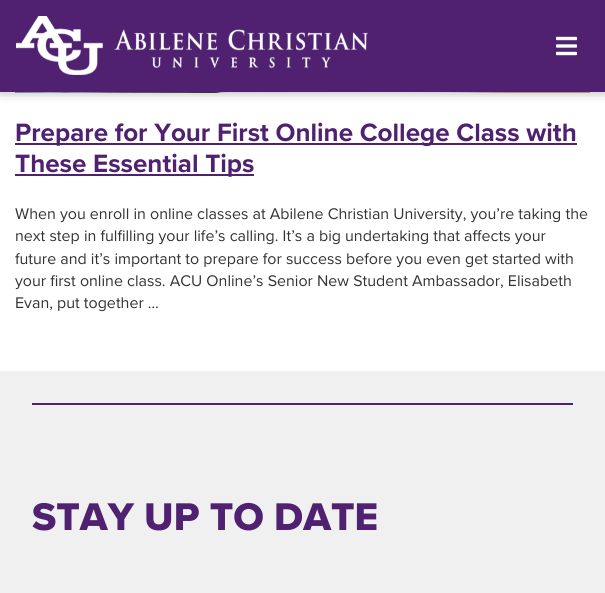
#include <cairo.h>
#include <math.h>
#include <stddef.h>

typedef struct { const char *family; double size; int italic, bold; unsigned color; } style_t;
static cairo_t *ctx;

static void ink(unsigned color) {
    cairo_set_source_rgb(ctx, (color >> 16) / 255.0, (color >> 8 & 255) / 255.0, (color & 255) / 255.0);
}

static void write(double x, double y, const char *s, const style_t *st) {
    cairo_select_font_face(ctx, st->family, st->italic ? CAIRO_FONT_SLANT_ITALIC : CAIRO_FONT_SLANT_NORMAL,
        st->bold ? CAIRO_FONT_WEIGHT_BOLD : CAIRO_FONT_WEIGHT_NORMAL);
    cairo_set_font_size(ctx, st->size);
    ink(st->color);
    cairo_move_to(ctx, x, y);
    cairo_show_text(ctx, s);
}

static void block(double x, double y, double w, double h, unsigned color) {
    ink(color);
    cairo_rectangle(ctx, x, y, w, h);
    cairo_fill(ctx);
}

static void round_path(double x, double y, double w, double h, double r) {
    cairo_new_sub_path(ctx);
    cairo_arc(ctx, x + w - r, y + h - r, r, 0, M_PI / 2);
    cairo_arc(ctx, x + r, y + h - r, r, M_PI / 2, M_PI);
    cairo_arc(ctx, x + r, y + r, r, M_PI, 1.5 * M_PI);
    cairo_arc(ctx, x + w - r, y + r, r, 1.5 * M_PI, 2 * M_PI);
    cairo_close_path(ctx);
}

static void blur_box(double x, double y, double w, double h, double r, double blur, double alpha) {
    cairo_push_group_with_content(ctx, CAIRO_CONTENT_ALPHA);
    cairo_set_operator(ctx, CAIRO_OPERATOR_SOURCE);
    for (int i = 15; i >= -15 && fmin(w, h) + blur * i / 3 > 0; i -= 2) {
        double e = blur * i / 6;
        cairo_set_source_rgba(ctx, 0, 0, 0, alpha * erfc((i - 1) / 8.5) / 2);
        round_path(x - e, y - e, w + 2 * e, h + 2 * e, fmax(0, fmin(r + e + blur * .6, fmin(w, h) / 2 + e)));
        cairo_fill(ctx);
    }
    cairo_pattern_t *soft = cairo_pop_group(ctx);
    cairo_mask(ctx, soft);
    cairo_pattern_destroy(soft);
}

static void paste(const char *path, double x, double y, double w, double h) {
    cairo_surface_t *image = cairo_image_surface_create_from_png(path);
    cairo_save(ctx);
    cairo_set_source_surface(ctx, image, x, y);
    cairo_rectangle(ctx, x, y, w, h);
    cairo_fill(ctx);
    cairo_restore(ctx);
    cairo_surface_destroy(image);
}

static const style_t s1 = {"Proxima Nova", 26, 0, 1, 0x4f2170};
static const style_t s2 = {"Proxima Nova", 16, 0, 0, 0x333333};
static const style_t s3 = {"Proxima Nova ExtraBold", 40, 0, 0, 0x4f2170};

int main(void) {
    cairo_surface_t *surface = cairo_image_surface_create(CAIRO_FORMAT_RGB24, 605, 593);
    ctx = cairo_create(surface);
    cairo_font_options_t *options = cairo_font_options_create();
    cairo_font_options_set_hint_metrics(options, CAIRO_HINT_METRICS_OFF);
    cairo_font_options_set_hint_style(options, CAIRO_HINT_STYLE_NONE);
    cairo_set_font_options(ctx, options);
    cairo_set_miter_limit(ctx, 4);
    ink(0xffffff);
    cairo_paint(ctx);
    paste("pic3.png", 15, 92, 575, 1);
    ink(0x000000);
    blur_box(0, -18, 605, 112, 0, 6, 0.15);
    block(0, 0, 605, 92, 0x4f2170);
    cairo_save(ctx);
    cairo_rectangle(ctx, 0, 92, 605, 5);
    cairo_clip(ctx);
    ink(0x000000);
    blur_box(0, 2, 605, 92, 0, 4, 0.1);
    cairo_restore(ctx);
    paste("pic1.png", 16, 16, 352, 59);
    paste("pic2.png", 556, 36, 21, 20);
    block(15, 143, 562, 2, 0x4f2170);
    write(15, 141, "Prepare for Your First Online College Class with", &s1);
    block(15, 174, 239, 2, 0x4f2170);
    write(15, 172, "These Essential Tips", &s1);
    write(15, 219, "When you enroll in online classes at Abilene Christian University, you’re taking the", &s2);
    write(15, 241, "next step in fulfilling your life’s calling. It’s a big undertaking that affects your", &s2);
    write(15, 264, "future and it’s important to prepare for success before you even get started with", &s2);
    write(15, 286, "your first online class. ACU Online’s Senior New Student Ambassador, Elisabeth", &s2);
    write(15, 308, "Evan, put together …", &s2);
    block(0, 371, 605, 222, 0xf0f0f0);
    block(32, 403, 541, 2, 0x4f2170);
    write(32, 530, "STAY UP TO DATE", &s3);
    cairo_surface_write_to_png(surface, "screenshot.png");
    cairo_font_options_destroy(options);
    cairo_destroy(ctx);
    cairo_surface_destroy(surface);
    return 0;
}
